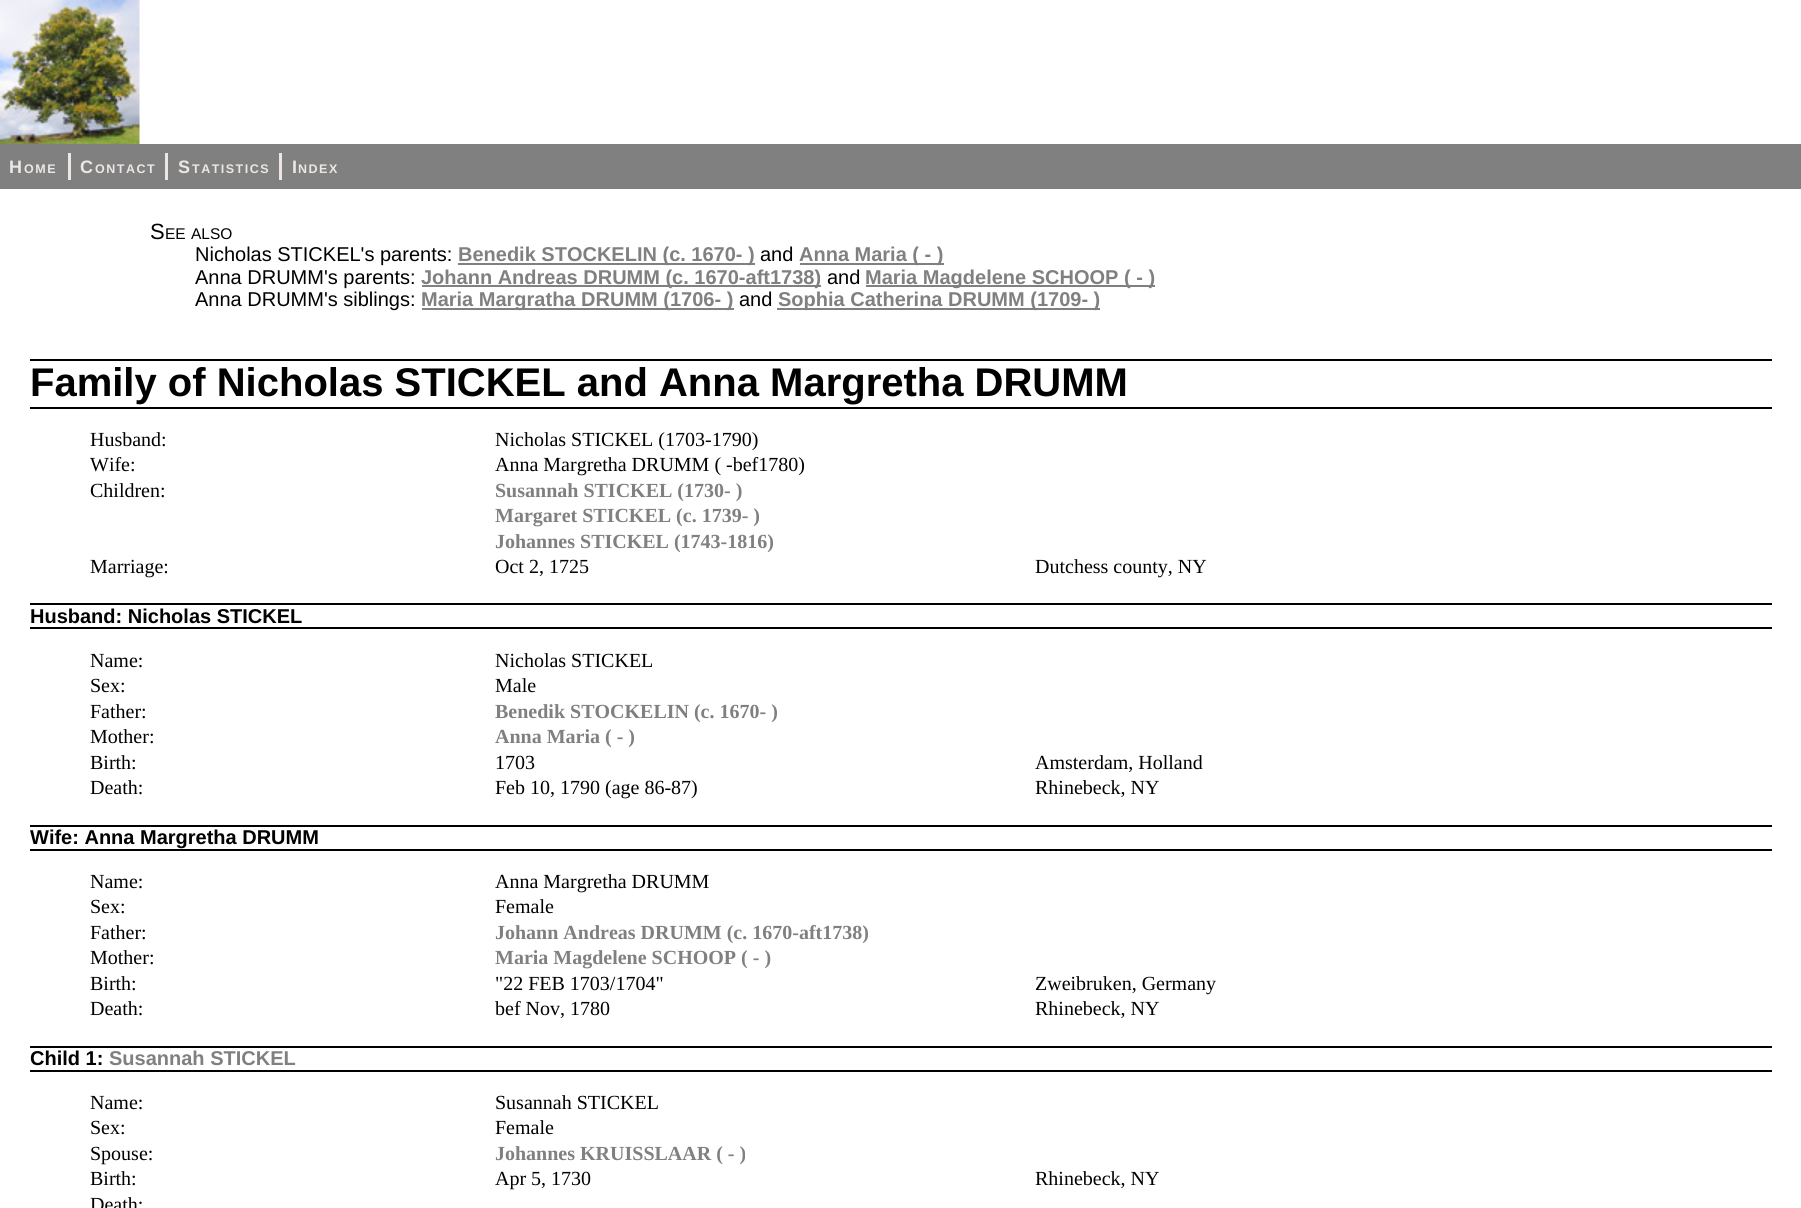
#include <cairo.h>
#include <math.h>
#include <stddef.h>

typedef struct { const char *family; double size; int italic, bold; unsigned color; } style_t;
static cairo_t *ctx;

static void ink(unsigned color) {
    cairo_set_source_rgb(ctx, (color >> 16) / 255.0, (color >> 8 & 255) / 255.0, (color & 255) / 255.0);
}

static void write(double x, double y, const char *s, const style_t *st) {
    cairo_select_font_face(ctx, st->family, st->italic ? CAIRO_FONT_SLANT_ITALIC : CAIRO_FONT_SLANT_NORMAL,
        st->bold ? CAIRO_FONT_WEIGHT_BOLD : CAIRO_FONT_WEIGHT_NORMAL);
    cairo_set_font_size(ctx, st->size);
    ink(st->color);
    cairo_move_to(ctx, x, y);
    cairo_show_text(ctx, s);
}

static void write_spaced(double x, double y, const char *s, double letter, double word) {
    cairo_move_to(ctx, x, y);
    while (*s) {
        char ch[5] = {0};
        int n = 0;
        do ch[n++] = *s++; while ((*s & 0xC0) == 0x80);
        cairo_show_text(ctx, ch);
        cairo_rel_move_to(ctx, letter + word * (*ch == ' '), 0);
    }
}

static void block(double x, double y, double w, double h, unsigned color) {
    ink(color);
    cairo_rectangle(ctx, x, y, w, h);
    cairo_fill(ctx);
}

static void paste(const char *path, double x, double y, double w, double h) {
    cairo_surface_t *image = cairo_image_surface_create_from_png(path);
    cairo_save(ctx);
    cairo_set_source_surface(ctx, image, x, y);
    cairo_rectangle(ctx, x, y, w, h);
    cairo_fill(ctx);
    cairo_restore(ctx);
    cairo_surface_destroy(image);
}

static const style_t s1 = {"Liberation Sans", 22, 0, 0, 0x000000};
static const style_t s2 = {"Liberation Sans", 15.5, 0, 0, 0x000000};
static const style_t s3 = {"Liberation Sans", 20, 0, 0, 0x000000};
static const style_t s4 = {"Liberation Sans", 20, 0, 1, 0x808080};
static const style_t s5 = {"Liberation Sans", 40, 0, 1, 0x000000};
static const style_t s6 = {"Liberation Serif", 20, 0, 0, 0x000000};
static const style_t s7 = {"Liberation Serif", 20, 0, 1, 0x808080};
static const style_t s8 = {"Liberation Sans", 20, 0, 1, 0x000000};

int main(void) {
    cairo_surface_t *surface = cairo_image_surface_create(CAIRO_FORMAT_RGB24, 1801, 1208);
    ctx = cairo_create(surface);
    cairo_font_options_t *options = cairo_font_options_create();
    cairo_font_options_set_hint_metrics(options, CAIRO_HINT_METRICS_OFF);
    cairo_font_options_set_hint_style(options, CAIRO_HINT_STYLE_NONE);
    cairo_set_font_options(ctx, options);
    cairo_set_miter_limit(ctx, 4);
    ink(0xffffff);
    cairo_paint(ctx);
    paste("pic1.png", 0, 0, 140, 144);
    block(0, 144, 1801, 45, 0x808080);
    block(68, 153, 3, 27, 0xece7e3);
    cairo_select_font_face(ctx, "Liberation Sans", CAIRO_FONT_SLANT_NORMAL, CAIRO_FONT_WEIGHT_BOLD);
    cairo_set_font_size(ctx, 18);
    write_spaced(9, 173, "H", 1.5, 0);
    cairo_set_font_size(ctx, 12.5);
    write_spaced(24, 173, "OME", 1.5, 0);
    block(165, 153, 3, 27, 0xece7e3);
    cairo_set_font_size(ctx, 18);
    write_spaced(80, 173, "C", 1.5, 0);
    cairo_set_font_size(ctx, 12.5);
    write_spaced(95, 173, "ONTACT", 1.5, 0);
    block(279, 153, 3, 27, 0xece7e3);
    cairo_set_font_size(ctx, 18);
    write_spaced(178, 173, "S", 1.5, 0);
    cairo_set_font_size(ctx, 12.5);
    write_spaced(192, 173, "TATISTICS", 1.5, 0);
    cairo_set_font_size(ctx, 18);
    write_spaced(292, 173, "I", 1.5, 0);
    cairo_set_font_size(ctx, 12.5);
    write_spaced(298, 173, "NDEX", 1.5, 0);
    write(150, 239, "S", &s1);
    write(165, 239, "EE", &s2);
    write(191, 239, "ALSO", &s2);
    write(195, 261, "Nicholas STICKEL's parents:", &s3);
    block(458, 263, 297, 2, 0x808080);
    write(458, 261, "Benedik STOCKELIN (c. 1670- )", &s4);
    write(760, 261, "and", &s3);
    block(800, 263, 144, 2, 0x808080);
    write(799, 261, "Anna Maria ( - )", &s4);
    write(195, 284, "Anna DRUMM's parents:", &s3);
    block(422, 285, 399, 2, 0x808080);
    write(421, 284, "Johann Andreas DRUMM (c. 1670-aft1738)", &s4);
    write(827, 284, "and", &s3);
    block(866, 285, 289, 2, 0x808080);
    write(865, 284, "Maria Magdelene SCHOOP ( - )", &s4);
    write(195, 306, "Anna DRUMM's siblings:", &s3);
    block(422, 308, 312, 2, 0x808080);
    write(421, 306, "Maria Margratha DRUMM (1706- )", &s4);
    write(739, 306, "and", &s3);
    block(777, 308, 323, 2, 0x808080);
    write(778, 306, "Sophia Catherina DRUMM (1709- )", &s4);
    block(30, 359, 1742, 2, 0x000000);
    block(30, 407, 1742, 2, 0x000000);
    write(30, 396, "Family of Nicholas STICKEL and Anna Margretha DRUMM", &s5);
    write(90, 446, "Husband:", &s6);
    write(495, 446, "Nicholas STICKEL (1703-1790)", &s6);
    write(90, 471, "Wife:", &s6);
    write(495, 471, "Anna Margretha DRUMM ( -bef1780)", &s6);
    write(90, 497, "Children:", &s6);
    write(495, 497, "Susannah STICKEL (1730- )", &s7);
    write(495, 522, "Margaret STICKEL (c. 1739- )", &s7);
    write(495, 548, "Johannes STICKEL (1743-1816)", &s7);
    write(90, 573, "Marriage:", &s6);
    write(495, 573, "Oct 2, 1725", &s6);
    write(1035, 573, "Dutchess county, NY", &s6);
    block(30, 603, 1742, 2, 0x000000);
    block(30, 627, 1742, 2, 0x000000);
    write(30, 623, "Husband: Nicholas STICKEL", &s8);
    write(90, 667, "Name:", &s6);
    write(495, 667, "Nicholas STICKEL", &s6);
    write(90, 692, "Sex:", &s6);
    write(495, 692, "Male", &s6);
    write(90, 718, "Father:", &s6);
    write(495, 718, "Benedik STOCKELIN (c. 1670- )", &s7);
    write(90, 743, "Mother:", &s6);
    write(495, 743, "Anna Maria ( - )", &s7);
    write(90, 769, "Birth:", &s6);
    write(495, 769, "1703", &s6);
    write(1035, 769, "Amsterdam, Holland", &s6);
    write(90, 794, "Death:", &s6);
    write(495, 794, "Feb 10, 1790 (age 86-87)", &s6);
    write(1035, 794, "Rhinebeck, NY", &s6);
    block(30, 825, 1742, 2, 0x000000);
    block(30, 849, 1742, 2, 0x000000);
    write(30, 844, "Wife: Anna Margretha DRUMM", &s8);
    write(90, 888, "Name:", &s6);
    write(495, 888, "Anna Margretha DRUMM", &s6);
    write(90, 913, "Sex:", &s6);
    write(495, 913, "Female", &s6);
    write(90, 939, "Father:", &s6);
    write(495, 939, "Johann Andreas DRUMM (c. 1670-aft1738)", &s7);
    write(90, 964, "Mother:", &s6);
    write(495, 964, "Maria Magdelene SCHOOP ( - )", &s7);
    write(90, 990, "Birth:", &s6);
    write(495, 990, "\"22 FEB 1703/1704\"", &s6);
    write(1035, 990, "Zweibruken, Germany", &s6);
    write(90, 1015, "Death:", &s6);
    write(495, 1015, "bef Nov, 1780", &s6);
    write(1035, 1015, "Rhinebeck, NY", &s6);
    block(30, 1046, 1742, 2, 0x000000);
    block(30, 1070, 1742, 2, 0x000000);
    write(30, 1065, "Child 1:", &s8);
    write(109, 1065, "Susannah STICKEL", &s4);
    write(90, 1109, "Name:", &s6);
    write(495, 1109, "Susannah STICKEL", &s6);
    write(90, 1134, "Sex:", &s6);
    write(495, 1134, "Female", &s6);
    write(90, 1160, "Spouse:", &s6);
    write(495, 1160, "Johannes KRUISSLAAR ( - )", &s7);
    write(90, 1185, "Birth:", &s6);
    write(495, 1185, "Apr 5, 1730", &s6);
    write(1035, 1185, "Rhinebeck, NY", &s6);
    write(90, 1211, "Death:", &s6);
    cairo_surface_write_to_png(surface, "screenshot.png");
    cairo_font_options_destroy(options);
    cairo_destroy(ctx);
    cairo_surface_destroy(surface);
    return 0;
}
